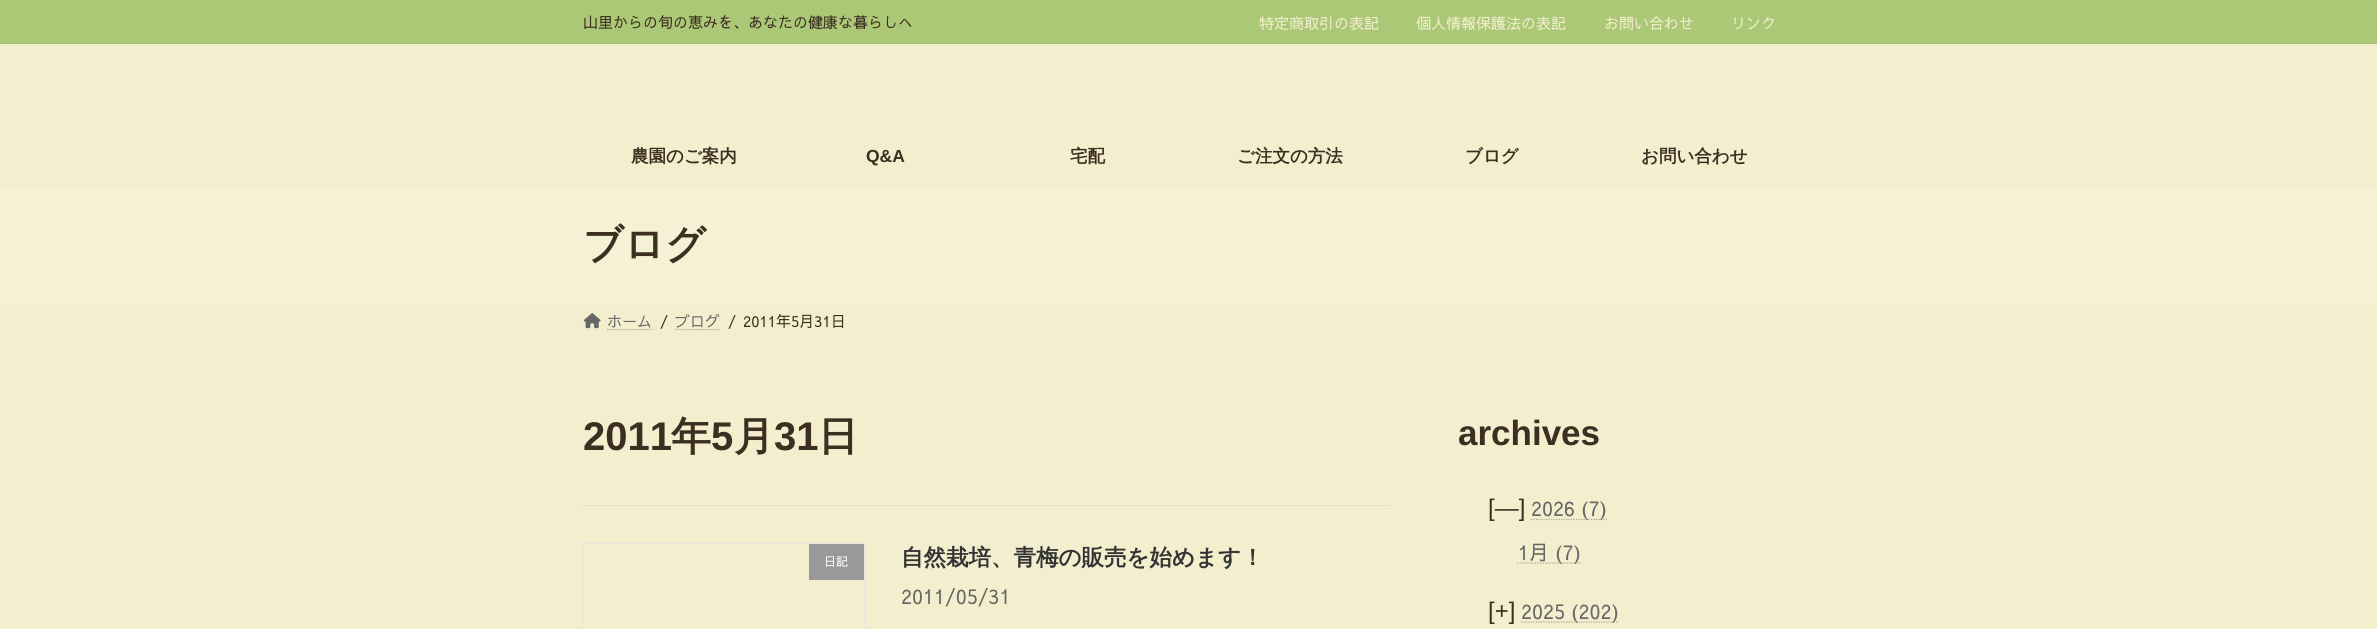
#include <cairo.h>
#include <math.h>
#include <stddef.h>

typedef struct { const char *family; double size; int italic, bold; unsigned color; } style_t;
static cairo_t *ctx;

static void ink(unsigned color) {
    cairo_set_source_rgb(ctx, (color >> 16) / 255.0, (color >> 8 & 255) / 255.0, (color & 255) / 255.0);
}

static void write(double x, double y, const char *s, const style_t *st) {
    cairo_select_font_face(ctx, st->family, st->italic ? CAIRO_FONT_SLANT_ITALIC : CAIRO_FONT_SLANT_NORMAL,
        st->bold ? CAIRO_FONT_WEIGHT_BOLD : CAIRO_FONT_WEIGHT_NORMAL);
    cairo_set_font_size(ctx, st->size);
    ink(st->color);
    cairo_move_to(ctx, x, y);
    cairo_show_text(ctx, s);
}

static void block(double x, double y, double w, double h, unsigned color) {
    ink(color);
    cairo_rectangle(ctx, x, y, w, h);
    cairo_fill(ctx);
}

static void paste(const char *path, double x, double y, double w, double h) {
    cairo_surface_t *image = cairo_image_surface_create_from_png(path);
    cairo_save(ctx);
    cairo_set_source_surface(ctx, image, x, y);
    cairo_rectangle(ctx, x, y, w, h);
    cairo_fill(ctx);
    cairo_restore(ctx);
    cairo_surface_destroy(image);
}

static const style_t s1 = {"Sawarabi Gothic", 15, 0, 0, 0x3c2e21};
static const style_t s2 = {"Sawarabi Gothic", 15, 0, 0, 0xf3eece};
static const style_t s3 = {"WenQuanYi Zen Hei", 17.5, 0, 1, 0x3c2e21};
static const style_t s4 = {"Liberation Sans", 17.5, 0, 1, 0x3c2e21};
static const style_t s5 = {"WenQuanYi Zen Hei", 40, 0, 1, 0x3c2e21};
static const style_t s6 = {"Sawarabi Gothic", 15, 0, 0, 0x666666};
static const style_t s7 = {"Liberation Sans", 40, 0, 1, 0x3c2e21};
static const style_t s8 = {"Sawarabi Gothic", 12, 0, 0, 0xffffff};
static const style_t s9 = {"WenQuanYi Zen Hei", 22.5, 0, 1, 0x333333};
static const style_t s10 = {"Sawarabi Gothic", 20, 0, 0, 0x666666};
static const style_t s11 = {"Liberation Sans", 35, 0, 1, 0x3c2e21};
static const style_t s12 = {"Liberation Sans", 24, 0, 0, 0x3c2e21};

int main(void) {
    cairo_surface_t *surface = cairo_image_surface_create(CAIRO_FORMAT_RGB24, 2377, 629);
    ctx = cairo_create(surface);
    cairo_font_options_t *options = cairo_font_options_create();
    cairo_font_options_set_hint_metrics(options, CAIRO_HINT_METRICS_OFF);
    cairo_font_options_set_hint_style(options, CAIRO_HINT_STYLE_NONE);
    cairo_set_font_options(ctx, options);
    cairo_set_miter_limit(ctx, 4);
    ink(0xf3eece);
    cairo_paint(ctx);
    block(0, 0, 2377, 43, 0xabc877);
    block(0, 43, 2377, 1, 0xa4c072);
    write(583, 28, "山里からの旬の恵みを、あなたの健康な暮らしへ", &s1);
    write(1259, 29, "特定商取引の表記", &s2);
    write(1416, 29, "個人情報保護法の表記", &s2);
    write(1604, 29, "お問い合わせ", &s2);
    write(1731, 29, "リンク", &s2);
    write(631, 162, "農園のご案内", &s3);
    write(866, 162, "Q&A", &s4);
    write(1070, 162, "宅配", &s3);
    write(1237, 162, "ご注文の方法", &s3);
    write(1465, 162, "ブログ", &s3);
    write(1641, 162, "お問い合わせ", &s3);
    block(0, 188, 2377, 115, 0xf5f1d4);
    write(583, 258, "ブログ", &s5);
    paste("pic1.png", 583, 313, 18, 16);
    write(607, 327, "ホーム", &s6);
    cairo_new_path(ctx);
    cairo_move_to(ctx, 607, 329.5);
    cairo_line_to(ctx, 652.5, 329.5);
    ink(0xaaa790);
    cairo_set_line_width(ctx, 1.2);
    cairo_set_dash(ctx, (double[]){1.25, 1.25}, 2, 0);
    cairo_stroke(ctx);
    write(660, 327, "/", &s1);
    write(675, 327, "ブログ", &s6);
    cairo_new_path(ctx);
    cairo_move_to(ctx, 675.5, 329.5);
    cairo_line_to(ctx, 720.5, 329.5);
    ink(0xaaa790);
    cairo_stroke(ctx);
    write(728, 327, "/", &s1);
    write(743, 327, "2011年5月31日", &s1);
    write(583, 450, "2011", &s7);
    write(671, 450, "年", &s5);
    write(711, 450, "5", &s7);
    write(734, 450, "月", &s5);
    write(774, 450, "31", &s7);
    write(818, 450, "日", &s5);
    block(583, 505, 807, 1, 0xe4e0c2);
    block(583, 543, 282, 1, 0xe5e5e5);
    block(864, 543, 1, 86, 0xe5e5e5);
    block(583, 543, 1, 86, 0xe5e5e5);
    block(809, 544, 55, 36, 0x999999);
    write(824, 566, "日記", &s8);
    write(901, 565, "自然栽培、青梅の販売を始めます！", &s9);
    write(901, 604, "2011/05/31", &s10);
    write(1458, 445, "archives", &s11);
    write(1488, 516, "[—]", &s12);
    write(1531, 516, "2026", &s10);
    cairo_new_path(ctx);
    cairo_move_to(ctx, 1581, 519.5);
    cairo_line_to(ctx, 1607, 519.5);
    ink(0xaaa790);
    cairo_stroke(ctx);
    write(1581, 516, "(7)", &s10);
    cairo_new_path(ctx);
    cairo_move_to(ctx, 1531, 519.5);
    cairo_line_to(ctx, 1581, 519.5);
    ink(0xaaa790);
    cairo_stroke(ctx);
    write(1518, 560, "1月", &s10);
    cairo_new_path(ctx);
    cairo_move_to(ctx, 1554.5, 563);
    cairo_line_to(ctx, 1580.5, 563);
    ink(0xaaa790);
    cairo_stroke(ctx);
    write(1555, 560, "(7)", &s10);
    cairo_new_path(ctx);
    cairo_move_to(ctx, 1517.5, 563);
    cairo_line_to(ctx, 1554.5, 563);
    ink(0xaaa790);
    cairo_stroke(ctx);
    write(1488, 619, "[+]", &s12);
    write(1521, 619, "2025", &s10);
    cairo_new_path(ctx);
    cairo_move_to(ctx, 1571, 622);
    cairo_line_to(ctx, 1619, 622);
    ink(0xaaa790);
    cairo_stroke(ctx);
    write(1571, 619, "(202)", &s10);
    cairo_new_path(ctx);
    cairo_move_to(ctx, 1521, 622);
    cairo_line_to(ctx, 1571, 622);
    ink(0xaaa790);
    cairo_stroke(ctx);
    cairo_surface_write_to_png(surface, "screenshot.png");
    cairo_font_options_destroy(options);
    cairo_destroy(ctx);
    cairo_surface_destroy(surface);
    return 0;
}
